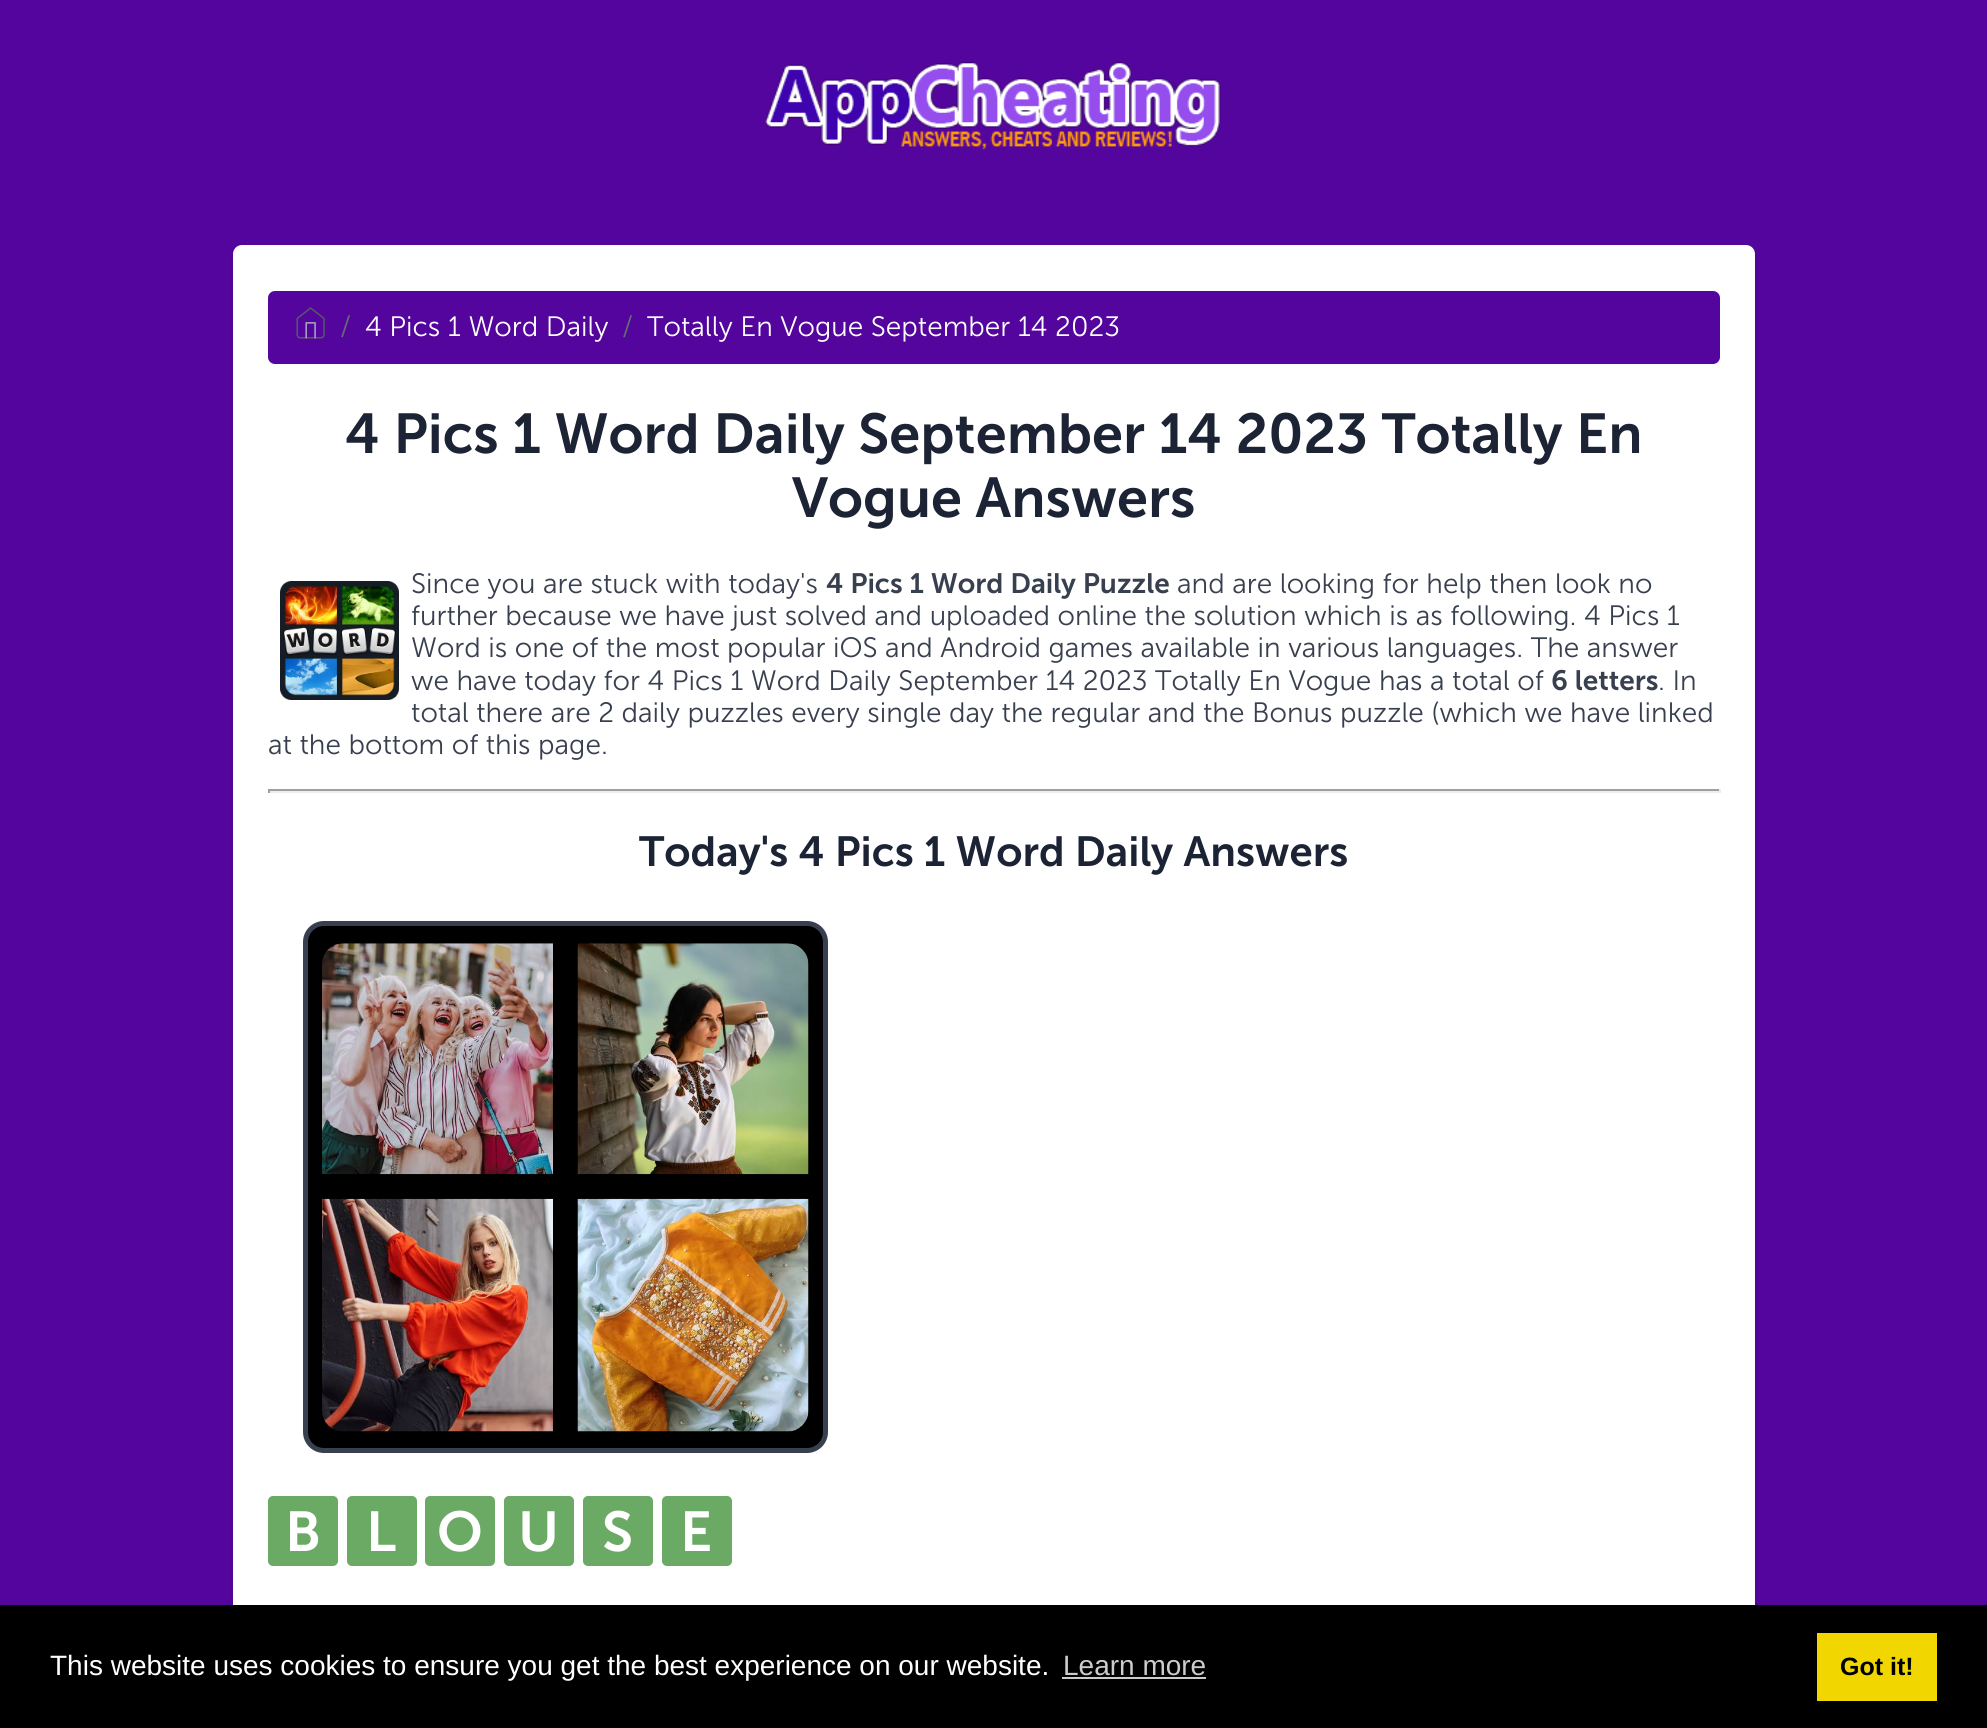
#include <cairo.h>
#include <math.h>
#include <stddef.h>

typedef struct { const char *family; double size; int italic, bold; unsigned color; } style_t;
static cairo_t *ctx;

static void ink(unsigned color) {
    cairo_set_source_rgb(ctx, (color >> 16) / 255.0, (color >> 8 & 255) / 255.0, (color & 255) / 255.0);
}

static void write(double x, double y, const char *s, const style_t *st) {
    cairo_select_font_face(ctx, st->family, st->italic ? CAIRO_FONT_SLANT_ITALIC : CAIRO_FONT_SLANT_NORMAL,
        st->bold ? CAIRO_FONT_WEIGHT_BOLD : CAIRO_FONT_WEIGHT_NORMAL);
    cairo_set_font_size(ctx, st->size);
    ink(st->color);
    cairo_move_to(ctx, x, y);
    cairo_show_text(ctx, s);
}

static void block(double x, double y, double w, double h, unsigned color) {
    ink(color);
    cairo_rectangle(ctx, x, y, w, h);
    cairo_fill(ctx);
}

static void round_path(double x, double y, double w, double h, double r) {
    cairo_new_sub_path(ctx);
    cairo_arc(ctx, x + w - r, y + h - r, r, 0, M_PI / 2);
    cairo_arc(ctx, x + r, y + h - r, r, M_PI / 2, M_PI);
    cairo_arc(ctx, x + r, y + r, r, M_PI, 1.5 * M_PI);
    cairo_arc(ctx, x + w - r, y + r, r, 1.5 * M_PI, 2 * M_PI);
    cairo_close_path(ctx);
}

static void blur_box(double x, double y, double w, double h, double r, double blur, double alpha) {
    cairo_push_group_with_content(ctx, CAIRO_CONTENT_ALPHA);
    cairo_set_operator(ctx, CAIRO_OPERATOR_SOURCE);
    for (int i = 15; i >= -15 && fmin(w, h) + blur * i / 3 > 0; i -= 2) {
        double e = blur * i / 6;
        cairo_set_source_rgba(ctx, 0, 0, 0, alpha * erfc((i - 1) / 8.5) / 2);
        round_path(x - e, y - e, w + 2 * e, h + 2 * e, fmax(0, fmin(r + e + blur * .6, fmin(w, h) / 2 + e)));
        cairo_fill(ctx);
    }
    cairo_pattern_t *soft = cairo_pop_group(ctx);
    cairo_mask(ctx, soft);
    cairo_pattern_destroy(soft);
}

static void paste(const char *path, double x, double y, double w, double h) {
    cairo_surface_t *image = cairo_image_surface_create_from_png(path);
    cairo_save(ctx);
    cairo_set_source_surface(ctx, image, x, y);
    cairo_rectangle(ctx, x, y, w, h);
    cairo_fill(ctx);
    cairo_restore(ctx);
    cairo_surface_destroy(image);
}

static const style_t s1 = {"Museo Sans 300 Light", 28, 0, 0, 0x636c72};
static const style_t s2 = {"Museo Sans 300 Light", 28, 0, 0, 0xffffff};
static const style_t s3 = {"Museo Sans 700 SemiBold", 56, 0, 0, 0x1c2334};
static const style_t s4 = {"Museo Sans 300 Light", 28, 0, 0, 0x383f4e};
static const style_t s5 = {"Museo Sans 700 SemiBold", 28, 0, 0, 0x383f4e};
static const style_t s6 = {"Museo Sans 700 SemiBold", 42, 0, 0, 0x1c2334};
static const style_t s7 = {"Museo Sans 700 SemiBold", 56, 0, 0, 0xffffff};
static const style_t s8 = {"Liberation Sans", 28, 0, 0, 0xffffff};
static const style_t s9 = {"Liberation Sans", 28, 0, 0, 0xcccccc};
static const style_t s10 = {"Liberation Sans", 25, 0, 1, 0x000000};

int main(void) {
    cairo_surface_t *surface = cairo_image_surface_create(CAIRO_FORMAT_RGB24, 1987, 1728);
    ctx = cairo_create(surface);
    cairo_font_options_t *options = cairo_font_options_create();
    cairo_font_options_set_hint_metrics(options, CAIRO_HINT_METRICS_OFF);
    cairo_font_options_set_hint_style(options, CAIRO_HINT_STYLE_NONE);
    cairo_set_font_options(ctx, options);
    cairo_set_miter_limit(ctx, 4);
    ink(0x54059d);
    cairo_paint(ctx);
    paste("pic1.png", 764, 61, 457, 89);
    ink(0x000000);
    blur_box(233, 247, 1522, 1454, 9, 3.5, 0.1);
    ink(0xffffff);
    round_path(233, 245, 1522, 1454, 9);
    cairo_fill(ctx);
    ink(0x54059d);
    round_path(268, 291, 1452, 73, 7);
    cairo_fill(ctx);
    paste("pic2.png", 296, 307, 29, 32);
    write(340, 336, "/", &s1);
    write(365, 336, "4 Pics 1 Word Daily", &s2);
    write(622, 336, "/", &s1);
    write(647, 336, "Totally En Vogue September 14 2023", &s2);
    write(345, 453, "4 Pics 1 Word Daily September 14 2023 Totally En", &s3);
    write(792, 517, "Vogue Answers", &s3);
    paste("pic3.png", 280, 581, 119, 119);
    write(411, 593, "Since you are stuck with today's", &s4);
    write(826, 593, "4 Pics 1 Word Daily Puzzle", &s5);
    write(1177, 593, "and are looking for help then look no", &s4);
    write(411, 625, "further because we have just solved and uploaded online the solution which is as following. 4 Pics 1", &s4);
    write(411, 657, "Word is one of the most popular iOS and Android games available in various languages. The answer", &s4);
    write(411, 690, "we have today for 4 Pics 1 Word Daily September 14 2023 Totally En Vogue has a total of", &s4);
    write(1551, 690, "6 letters", &s5);
    write(1658, 690, ". In", &s4);
    write(411, 722, "total there are 2 daily puzzles every single day the regular and the Bonus puzzle (which we have linked", &s4);
    write(268, 754, "at the bottom of this page.", &s4);
    block(268, 789, 1452, 2, 0x9f9f9f);
    block(1719, 789, 2, 4, 0xeeeeee);
    block(268, 791, 1452, 2, 0xeeeeee);
    block(268, 789, 2, 4, 0x9f9f9f);
    write(639, 866, "Today's 4 Pics 1 Word Daily Answers", &s6);
    ink(0x000000);
    round_path(305.5, 923.5, 520, 527, 18.5);
    cairo_fill_preserve(ctx);
    ink(0x383f4e);
    cairo_set_line_width(ctx, 5);
    cairo_stroke(ctx);
    paste("pic4.png", 322, 943, 231, 232);
    paste("pic5.png", 577, 943, 232, 232);
    paste("pic6.png", 322, 1198, 231, 234);
    paste("pic7.png", 577, 1198, 232, 234);
    ink(0x6aaa64);
    round_path(268, 1496, 70, 70, 5);
    cairo_fill(ctx);
    write(285, 1551, "B", &s7);
    ink(0x6aaa64);
    round_path(347, 1496, 70, 70, 5);
    cairo_fill(ctx);
    write(366, 1551, "L", &s7);
    ink(0x6aaa64);
    round_path(425, 1496, 70, 70, 5);
    cairo_fill(ctx);
    write(437, 1551, "O", &s7);
    ink(0x6aaa64);
    round_path(504, 1496, 70, 70, 5);
    cairo_fill(ctx);
    write(518, 1551, "U", &s7);
    ink(0x6aaa64);
    round_path(583, 1496, 70, 70, 5);
    cairo_fill(ctx);
    write(602, 1551, "S", &s7);
    ink(0x6aaa64);
    round_path(662, 1496, 70, 70, 5);
    cairo_fill(ctx);
    write(680, 1551, "E", &s7);
    block(0, 1605, 1987, 123, 0x000000);
    write(50, 1675, "This website uses cookies to ensure you get the best experience on our website.", &s8);
    write(1063, 1675, "Learn more", &s9);
    block(1062, 1677, 144, 2, 0xcccccc);
    block(1817, 1633, 120, 68, 0xf1d600);
    write(1840, 1675, "Got it!", &s10);
    cairo_surface_write_to_png(surface, "screenshot.png");
    cairo_font_options_destroy(options);
    cairo_destroy(ctx);
    cairo_surface_destroy(surface);
    return 0;
}
